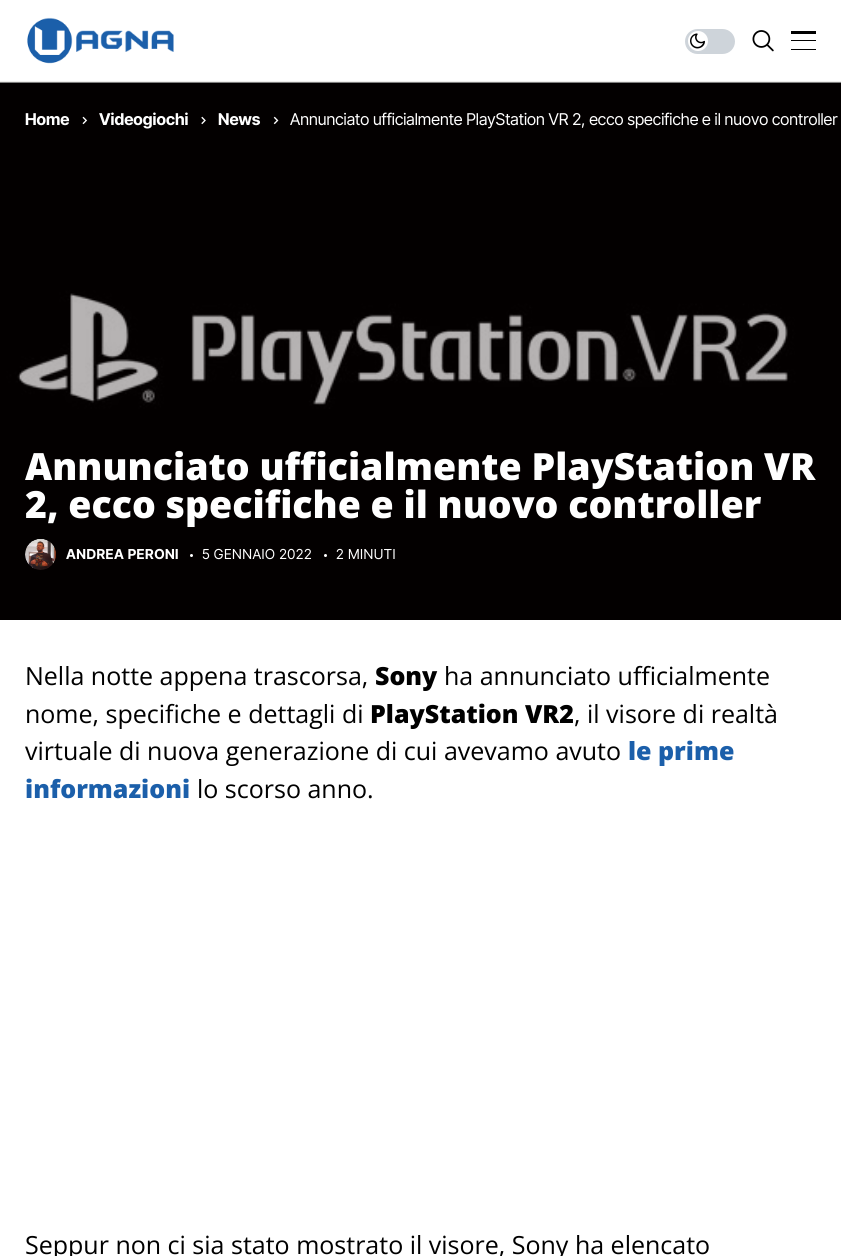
#include <cairo.h>
#include <math.h>
#include <stddef.h>

typedef struct { const char *family; double size; int italic, bold; unsigned color; } style_t;
static cairo_t *ctx;

static void ink(unsigned color) {
    cairo_set_source_rgb(ctx, (color >> 16) / 255.0, (color >> 8 & 255) / 255.0, (color & 255) / 255.0);
}

static void write(double x, double y, const char *s, const style_t *st) {
    cairo_select_font_face(ctx, st->family, st->italic ? CAIRO_FONT_SLANT_ITALIC : CAIRO_FONT_SLANT_NORMAL,
        st->bold ? CAIRO_FONT_WEIGHT_BOLD : CAIRO_FONT_WEIGHT_NORMAL);
    cairo_set_font_size(ctx, st->size);
    ink(st->color);
    cairo_move_to(ctx, x, y);
    cairo_show_text(ctx, s);
}

static void write_spaced(double x, double y, const char *s, double letter, double word) {
    cairo_move_to(ctx, x, y);
    while (*s) {
        char ch[5] = {0};
        int n = 0;
        do ch[n++] = *s++; while ((*s & 0xC0) == 0x80);
        cairo_show_text(ctx, ch);
        cairo_rel_move_to(ctx, letter + word * (*ch == ' '), 0);
    }
}

static void block(double x, double y, double w, double h, unsigned color) {
    ink(color);
    cairo_rectangle(ctx, x, y, w, h);
    cairo_fill(ctx);
}

static void round_path(double x, double y, double w, double h, double r) {
    cairo_new_sub_path(ctx);
    cairo_arc(ctx, x + w - r, y + h - r, r, 0, M_PI / 2);
    cairo_arc(ctx, x + r, y + h - r, r, M_PI / 2, M_PI);
    cairo_arc(ctx, x + r, y + r, r, M_PI, 1.5 * M_PI);
    cairo_arc(ctx, x + w - r, y + r, r, 1.5 * M_PI, 2 * M_PI);
    cairo_close_path(ctx);
}

static void paste(const char *path, double x, double y, double w, double h) {
    cairo_surface_t *image = cairo_image_surface_create_from_png(path);
    cairo_save(ctx);
    cairo_set_source_surface(ctx, image, x, y);
    cairo_rectangle(ctx, x, y, w, h);
    cairo_fill(ctx);
    cairo_restore(ctx);
    cairo_surface_destroy(image);
}

static const style_t s1 = {"Inter Tight", 16.25, 0, 1, 0xffffff};
static const style_t s2 = {"Inter Tight", 16.25, 0, 0, 0xffffff};
static const style_t s3 = {"Open Sans ExtraBold", 37.5, 0, 0, 0xffffff};
static const style_t s4 = {"Open Sans", 25, 0, 0, 0x000000};
static const style_t s5 = {"Open Sans ExtraBold", 25, 0, 0, 0x000000};
static const style_t s6 = {"Open Sans ExtraBold", 25, 0, 0, 0x1b5faa};

int main(void) {
    cairo_surface_t *surface = cairo_image_surface_create(CAIRO_FORMAT_RGB24, 841, 1256);
    ctx = cairo_create(surface);
    cairo_font_options_t *options = cairo_font_options_create();
    cairo_font_options_set_hint_metrics(options, CAIRO_HINT_METRICS_OFF);
    cairo_font_options_set_hint_style(options, CAIRO_HINT_STYLE_NONE);
    cairo_set_font_options(ctx, options);
    cairo_set_miter_limit(ctx, 4);
    ink(0xffffff);
    cairo_paint(ctx);
    block(0, 81, 841, 1, 0xeeedeb);
    paste("pic1.png", 27, 17, 147, 47);
    ink(0xced4da);
    round_path(685, 29, 50, 25, 12.5);
    cairo_fill(ctx);
    ink(0xffffff);
    cairo_arc(ctx, 698, 41, 10, 0, 2 * M_PI);
    cairo_fill(ctx);
    paste("pic2.png", 690, 33, 15, 16);
    paste("pic3.png", 752, 30, 22, 22);
    block(791, 31, 25, 3, 0x000000);
    block(791, 40, 25, 1, 0x000000);
    block(791, 49, 25, 1, 0x000000);
    paste("pic4.png", 0, 82, 841, 538);
    write(25, 125, "Home", &s1);
    paste("pic5.png", 82, 116, 6, 9);
    write(99, 125, "Videogiochi", &s1);
    paste("pic6.png", 201, 116, 5, 9);
    write(218, 125, "News", &s1);
    paste("pic7.png", 273, 116, 6, 9);
    write(290, 125, "Annunciato ufficialmente PlayStation VR 2, ecco specifiche e il nuovo controller", &s2);
    write(25, 480, "Annunciato ufficialmente PlayStation VR", &s3);
    write(25, 518, "2, ecco specifiche e il nuovo controller", &s3);
    paste("pic8.png", 25, 539, 31, 31);
    cairo_select_font_face(ctx, "Inter Tight", CAIRO_FONT_SLANT_NORMAL, CAIRO_FONT_WEIGHT_BOLD);
    cairo_set_font_size(ctx, 13.75);
    write_spaced(66, 559, "ANDREA PERONI", 0.5, 0);
    cairo_new_path(ctx);
    cairo_arc(ctx, 191.5, 555.5, 1.5, 0, 2 * M_PI);
    cairo_fill(ctx);
    cairo_select_font_face(ctx, "Inter Tight", CAIRO_FONT_SLANT_NORMAL, CAIRO_FONT_WEIGHT_NORMAL);
    write_spaced(202, 559, "5 GENNAIO 2022", 0.5, 0);
    cairo_new_path(ctx);
    cairo_arc(ctx, 325.5, 555.5, 1.5, 0, 2 * M_PI);
    cairo_fill(ctx);
    write_spaced(336, 559, "2 MINUTI", 0.5, 0);
    write(25, 685, "Nella notte appena trascorsa,", &s4);
    write(375, 685, "Sony", &s5);
    write(444, 685, "ha annunciato ufficialmente", &s4);
    write(25, 723, "nome, specifiche e dettagli di", &s4);
    write(370, 723, "PlayStation VR2", &s5);
    write(574, 723, ", il visore di realtà", &s4);
    write(25, 760, "virtuale di nuova generazione di cui avevamo avuto", &s4);
    write(628, 760, "le prime", &s6);
    write(25, 798, "informazioni", &s6);
    write(197, 798, "lo scorso anno.", &s4);
    write(25, 1254, "Seppur non ci sia stato mostrato il visore, Sony ha elencato", &s4);
    cairo_surface_write_to_png(surface, "screenshot.png");
    cairo_font_options_destroy(options);
    cairo_destroy(ctx);
    cairo_surface_destroy(surface);
    return 0;
}
